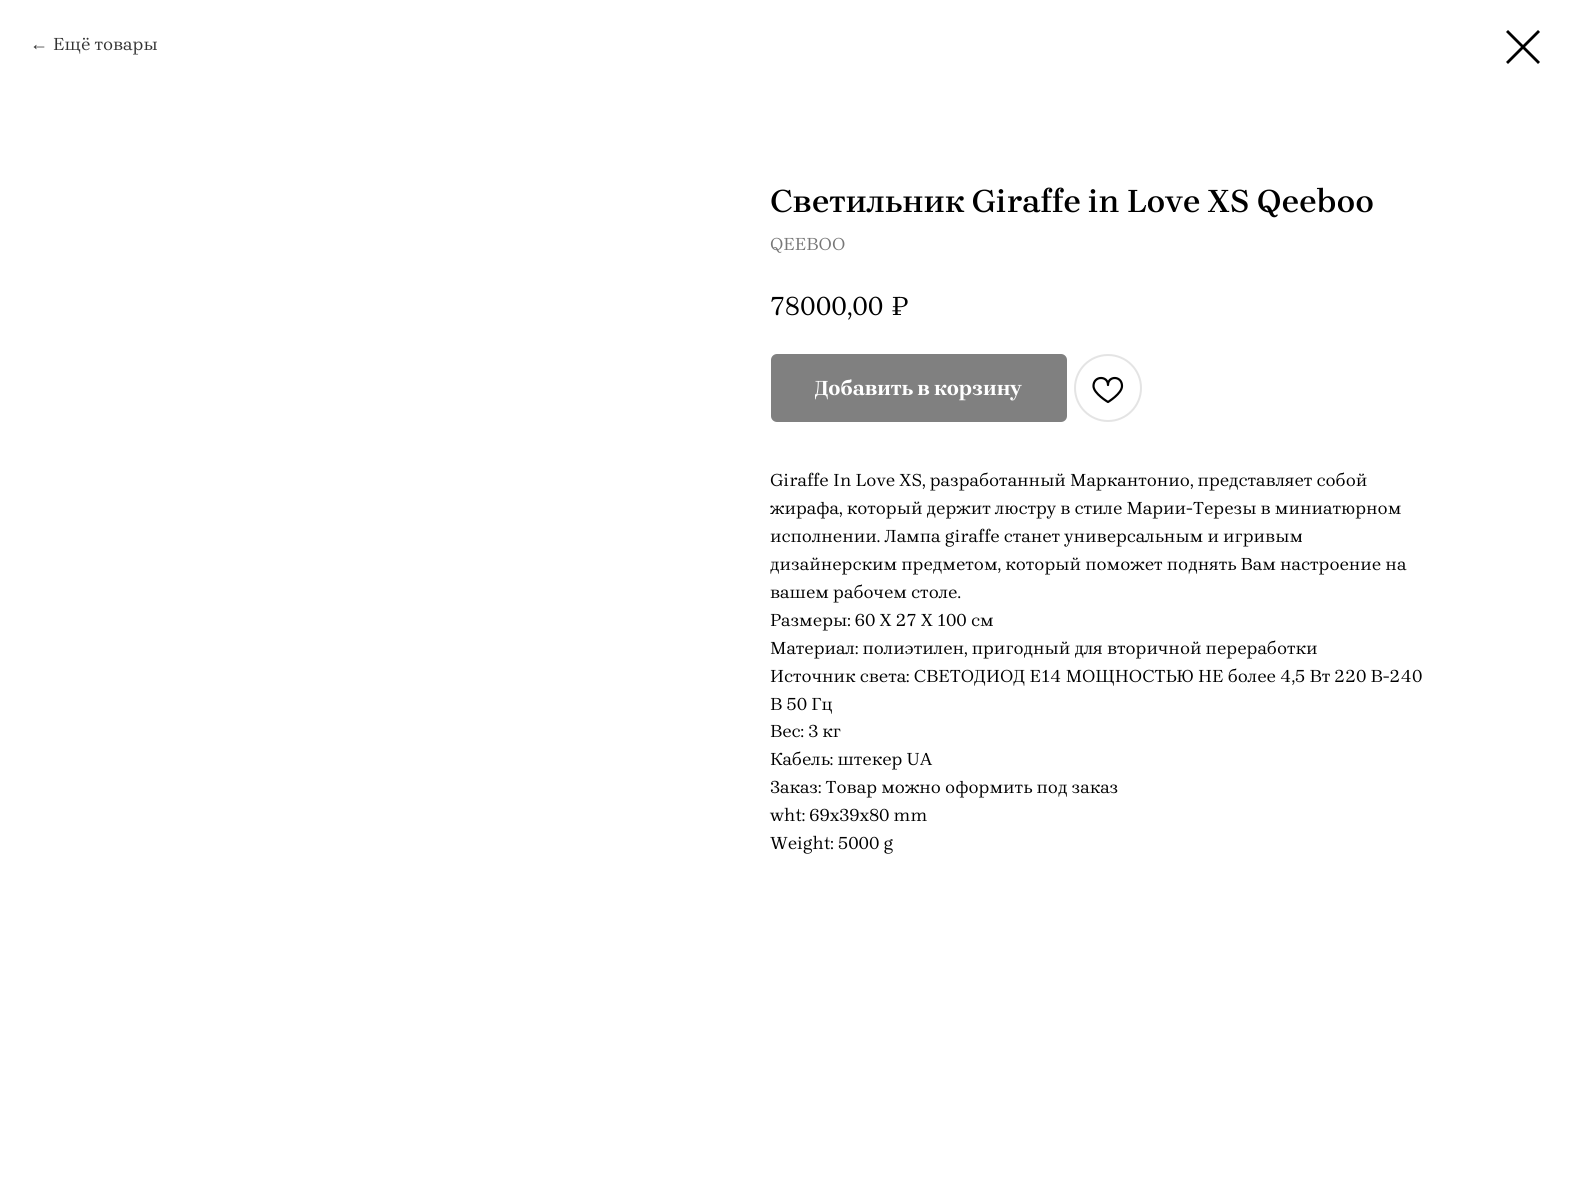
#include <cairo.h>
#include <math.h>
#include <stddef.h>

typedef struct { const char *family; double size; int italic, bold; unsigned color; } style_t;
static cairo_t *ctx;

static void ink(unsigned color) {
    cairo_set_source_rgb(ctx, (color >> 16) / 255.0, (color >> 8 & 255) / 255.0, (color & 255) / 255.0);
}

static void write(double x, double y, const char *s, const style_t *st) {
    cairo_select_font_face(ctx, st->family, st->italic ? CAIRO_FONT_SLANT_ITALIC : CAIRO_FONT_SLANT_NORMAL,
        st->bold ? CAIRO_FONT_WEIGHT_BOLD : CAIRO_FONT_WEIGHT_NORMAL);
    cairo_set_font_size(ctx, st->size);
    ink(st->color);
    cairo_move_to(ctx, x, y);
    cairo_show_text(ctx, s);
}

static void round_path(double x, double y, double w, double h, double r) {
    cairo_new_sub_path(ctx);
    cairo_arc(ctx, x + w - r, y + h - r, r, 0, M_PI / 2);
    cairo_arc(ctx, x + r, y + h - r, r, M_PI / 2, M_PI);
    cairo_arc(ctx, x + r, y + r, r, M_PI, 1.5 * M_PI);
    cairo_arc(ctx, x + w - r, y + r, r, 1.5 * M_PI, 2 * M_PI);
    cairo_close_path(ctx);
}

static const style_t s1 = {"Liberation Sans", 18, 0, 0, 0x333333};
static const style_t s2 = {"Brygada 1918", 18, 0, 0, 0x333333};
static const style_t s3 = {"Brygada 1918 SemiBold", 33, 0, 0, 0x000000};
static const style_t s4 = {"Brygada 1918", 18, 0, 0, 0x777777};
static const style_t s5 = {"Brygada 1918", 27, 0, 0, 0x000000};
static const style_t s6 = {"Brygada 1918", 21, 0, 1, 0xffffff};
static const style_t s7 = {"Brygada 1918", 18, 0, 0, 0x000000};

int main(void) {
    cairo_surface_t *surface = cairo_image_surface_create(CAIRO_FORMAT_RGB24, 1570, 1188);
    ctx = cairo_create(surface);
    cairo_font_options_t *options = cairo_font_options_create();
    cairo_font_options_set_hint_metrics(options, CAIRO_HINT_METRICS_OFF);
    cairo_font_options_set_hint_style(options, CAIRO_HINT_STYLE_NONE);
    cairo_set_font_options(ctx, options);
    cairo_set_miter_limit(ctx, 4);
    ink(0xffffff);
    cairo_paint(ctx);
    write(30, 50, "←", &s1);
    write(53, 50, "Ещё товары", &s2);
    ink(0x000000);
    cairo_set_fill_rule(ctx, CAIRO_FILL_RULE_EVEN_ODD);
    cairo_new_path(ctx);
    cairo_move_to(ctx, 1506, 32);
    cairo_line_to(ctx, 1508, 30);
    cairo_line_to(ctx, 1540, 62);
    cairo_line_to(ctx, 1538, 64);
    cairo_close_path(ctx);
    cairo_fill(ctx);
    cairo_new_path(ctx);
    cairo_move_to(ctx, 1538, 30);
    cairo_line_to(ctx, 1540, 32);
    cairo_line_to(ctx, 1508, 64);
    cairo_line_to(ctx, 1506, 62);
    cairo_close_path(ctx);
    cairo_fill(ctx);
    write(770, 212, "Светильник Giraffe in Love XS Qeeboo", &s3);
    write(770, 250, "QEEBOO", &s4);
    write(770, 315, "78000,00", &s5);
    write(891, 315, "₽", &s5);
    ink(0x808080);
    round_path(771, 354, 296, 68, 6);
    cairo_fill(ctx);
    write(815, 395, "Добавить в корзину", &s6);
    cairo_new_path(ctx);
    cairo_arc(ctx, 1108, 388, 33, 0, 2 * M_PI);
    ink(0xe4e4e4);
    cairo_stroke(ctx);
    cairo_new_path(ctx);
    cairo_move_to(ctx, 1122, 386);
    cairo_curve_to(ctx, 1122, 393.5, 1108, 402, 1108, 402);
    cairo_curve_to(ctx, 1108, 402, 1093.5, 393.5, 1093.5, 386);
    cairo_curve_to(ctx, 1093.5, 375.5, 1108, 375.5, 1108, 385);
    cairo_curve_to(ctx, 1108, 375.5, 1122, 375.5, 1122, 386);
    cairo_close_path(ctx);
    ink(0x000000);
    cairo_set_line_width(ctx, 2.2);
    cairo_set_line_join(ctx, CAIRO_LINE_JOIN_ROUND);
    cairo_stroke(ctx);
    write(770, 486, "Giraffe In Love XS, разработанный Маркантонио, представляет собой", &s7);
    write(770, 514, "жирафа, который держит люстру в стиле Марии-Терезы в миниатюрном", &s7);
    write(770, 542, "исполнении. Лампа giraffe станет универсальным и игривым", &s7);
    write(770, 570, "дизайнерским предметом, который поможет поднять Вам настроение на", &s7);
    write(770, 598, "вашем рабочем столе.", &s7);
    write(770, 626, "Размеры: 60 X 27 X 100 см", &s7);
    write(770, 654, "Материал: полиэтилен, пригодный для вторичной переработки", &s7);
    write(770, 682, "Источник света: СВЕТОДИОД E14 МОЩНОСТЬЮ НЕ более 4,5 Вт 220 В-240", &s7);
    write(770, 710, "В 50 Гц", &s7);
    write(770, 737, "Вес: 3 кг", &s7);
    write(770, 765, "Кабель: штекер UA", &s7);
    write(770, 793, "Заказ: Товар можно оформить под заказ", &s7);
    write(770, 821, "wht: 69x39x80 mm", &s7);
    write(770, 849, "Weight: 5000 g", &s7);
    cairo_surface_write_to_png(surface, "screenshot.png");
    cairo_font_options_destroy(options);
    cairo_destroy(ctx);
    cairo_surface_destroy(surface);
    return 0;
}
